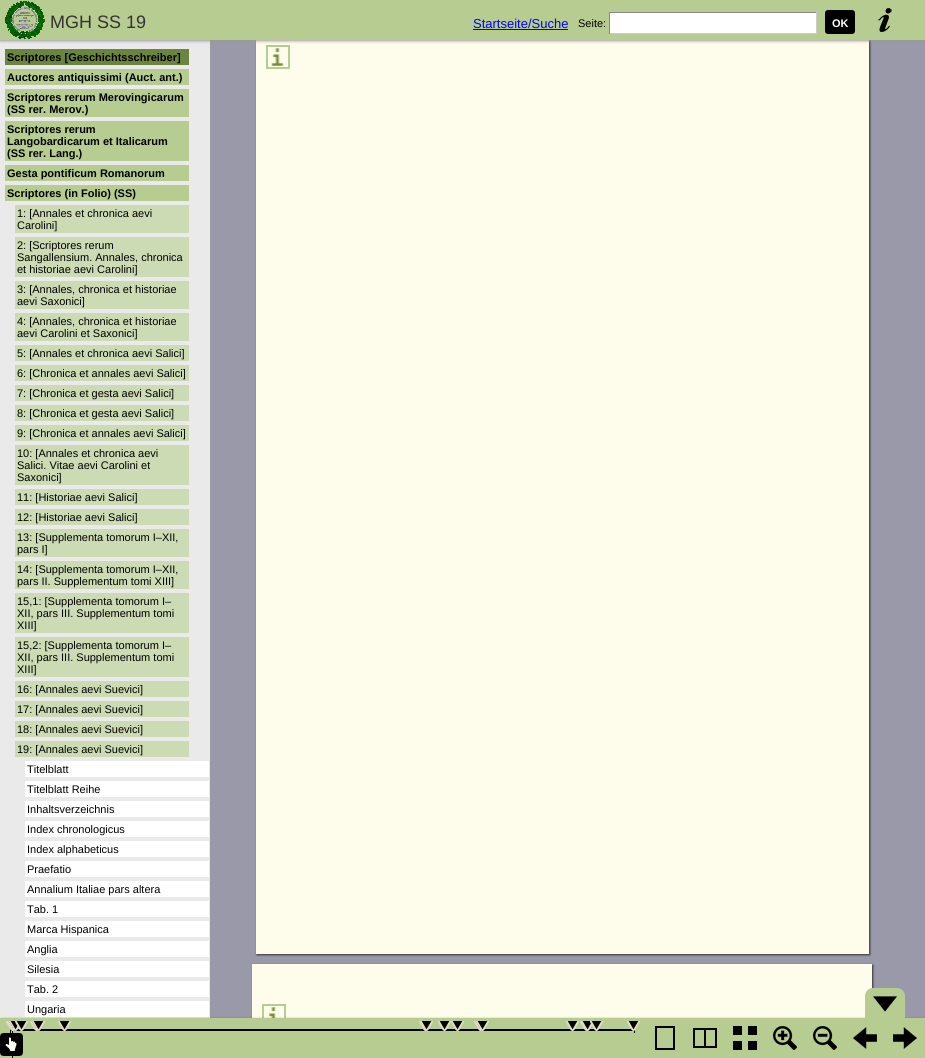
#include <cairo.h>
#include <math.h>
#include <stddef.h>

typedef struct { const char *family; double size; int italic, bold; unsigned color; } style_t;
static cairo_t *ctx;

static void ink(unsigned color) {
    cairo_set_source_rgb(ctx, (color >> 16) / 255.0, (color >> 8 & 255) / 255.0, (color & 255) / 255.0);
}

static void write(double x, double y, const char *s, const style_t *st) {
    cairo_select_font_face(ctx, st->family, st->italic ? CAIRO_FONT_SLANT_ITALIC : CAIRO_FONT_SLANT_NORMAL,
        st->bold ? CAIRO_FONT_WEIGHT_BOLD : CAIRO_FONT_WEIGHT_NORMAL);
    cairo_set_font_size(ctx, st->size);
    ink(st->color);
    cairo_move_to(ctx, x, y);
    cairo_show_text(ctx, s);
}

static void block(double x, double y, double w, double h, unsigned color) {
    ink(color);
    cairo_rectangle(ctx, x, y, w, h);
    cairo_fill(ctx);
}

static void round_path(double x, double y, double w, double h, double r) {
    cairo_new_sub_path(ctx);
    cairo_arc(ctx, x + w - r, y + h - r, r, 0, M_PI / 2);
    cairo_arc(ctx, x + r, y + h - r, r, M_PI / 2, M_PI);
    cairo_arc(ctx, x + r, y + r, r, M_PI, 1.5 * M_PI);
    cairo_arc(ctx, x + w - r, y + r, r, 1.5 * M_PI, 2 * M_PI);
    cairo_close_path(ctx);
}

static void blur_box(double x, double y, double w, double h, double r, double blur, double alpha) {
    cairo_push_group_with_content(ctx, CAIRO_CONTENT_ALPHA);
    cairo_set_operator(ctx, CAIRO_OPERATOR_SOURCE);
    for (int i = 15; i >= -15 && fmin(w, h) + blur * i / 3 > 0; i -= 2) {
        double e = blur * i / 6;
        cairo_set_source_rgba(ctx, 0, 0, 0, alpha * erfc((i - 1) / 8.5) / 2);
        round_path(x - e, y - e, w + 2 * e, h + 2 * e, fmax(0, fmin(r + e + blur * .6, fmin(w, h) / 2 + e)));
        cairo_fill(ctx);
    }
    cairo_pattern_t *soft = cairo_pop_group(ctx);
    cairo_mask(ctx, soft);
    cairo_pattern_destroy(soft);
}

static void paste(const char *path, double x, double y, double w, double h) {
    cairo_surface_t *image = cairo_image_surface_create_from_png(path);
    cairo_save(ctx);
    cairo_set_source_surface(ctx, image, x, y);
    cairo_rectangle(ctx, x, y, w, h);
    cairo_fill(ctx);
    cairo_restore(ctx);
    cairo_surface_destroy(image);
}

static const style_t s1 = {"Liberation Sans", 18, 0, 0, 0x333333};
static const style_t s2 = {"Liberation Sans", 13, 0, 0, 0x0000ff};
static const style_t s3 = {"Liberation Sans", 11, 0, 0, 0x000000};
static const style_t s4 = {"Liberation Sans", 11, 0, 1, 0xffffff};
static const style_t s5 = {"Liberation Sans", 11, 0, 1, 0x000000};

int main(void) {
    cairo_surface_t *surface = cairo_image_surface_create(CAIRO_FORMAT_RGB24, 925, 1058);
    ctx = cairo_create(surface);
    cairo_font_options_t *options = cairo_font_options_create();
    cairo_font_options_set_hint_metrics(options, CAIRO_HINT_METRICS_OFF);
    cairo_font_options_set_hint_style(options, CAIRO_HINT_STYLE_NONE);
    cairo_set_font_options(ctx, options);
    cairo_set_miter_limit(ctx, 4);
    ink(0x9999aa);
    cairo_paint(ctx);
    ink(0x333333);
    blur_box(257, 6, 613, 949, 0, 1, 1);
    block(256, 40, 613, 914, 0xfefdeb);
    cairo_rectangle(ctx, 267, 46, 22, 22);
    ink(0xb6cc91);
    cairo_stroke(ctx);
    paste("pic1.png", 271, 48, 13, 18);
    ink(0x333333);
    blur_box(253, 965, 620, 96, 0, 1, 1);
    block(252, 964, 620, 54, 0xfefdeb);
    cairo_rectangle(ctx, 263, 1005, 22, 22);
    ink(0xb6cc91);
    cairo_stroke(ctx);
    paste("pic2.png", 268, 1007, 8, 11);
    block(0, 40, 210, 978, 0xeaeaea);
    ink(0x999999);
    blur_box(0, 1, 925, 40, 0, 1.5, 1);
    block(0, 0, 925, 40, 0xb6cc91);
    paste("pic3.png", 5, 1, 40, 38);
    write(50, 28, "MGH SS 19", &s1);
    write(473, 28, "Startseite/Suche", &s2);
    block(473, 29, 95, 1, 0x0000ff);
    write(578, 27, "Seite:", &s3);
    block(610, 13, 206, 20, 0xffffff);
    block(609, 12, 208, 1, 0x888888);
    block(816, 12, 1, 22, 0xcccccc);
    block(609, 33, 208, 1, 0xcccccc);
    block(609, 12, 1, 22, 0x888888);
    ink(0x000000);
    round_path(825, 10, 30, 24, 3);
    cairo_fill(ctx);
    write(832, 27, "OK", &s4);
    paste("pic4.png", 878, 8, 14, 24);
    block(25, 1001, 184, 16, 0xffffff);
    ink(0x333333);
    blur_box(1, 1019, 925, 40, 0, 1, 1);
    block(0, 1018, 925, 40, 0xb6cc91);
    cairo_new_path(ctx);
    cairo_move_to(ctx, 873, 988);
    cairo_line_to(ctx, 897, 988);
    cairo_curve_to(ctx, 901.5, 988, 905, 991.5, 905, 996);
    cairo_line_to(ctx, 905, 1018);
    cairo_line_to(ctx, 865, 1018);
    cairo_line_to(ctx, 865, 996);
    cairo_curve_to(ctx, 865, 991.5, 868.5, 988, 873, 988);
    cairo_close_path(ctx);
    cairo_fill(ctx);
    paste("pic5.png", 873, 996, 24, 16);
    block(10, 1029, 625, 2, 0x000000);
    block(10, 1027, 1, 6, 0x000000);
    paste("pic6.png", 5, 1021, 8, 10);
    paste("pic7.png", 7, 1021, 8, 10);
    paste("pic8.png", 9, 1021, 10, 10);
    paste("pic9.png", 14, 1021, 15, 10);
    paste("pic10.png", 29, 1021, 9, 10);
    paste("pic11.png", 32, 1021, 14, 10);
    paste("pic12.png", 57, 1021, 15, 10);
    paste("pic13.png", 418, 1021, 13, 10);
    paste("pic14.png", 420, 1021, 14, 10);
    paste("pic15.png", 437, 1021, 14, 10);
    paste("pic16.png", 451, 1021, 14, 10);
    paste("pic10.png", 473, 1021, 9, 10);
    paste("pic11.png", 476, 1021, 14, 10);
    paste("pic12.png", 565, 1021, 15, 10);
    paste("pic17.png", 580, 1021, 12, 10);
    paste("pic18.png", 581, 1021, 12, 10);
    paste("pic19.png", 589, 1021, 15, 10);
    block(634, 1027, 1, 6, 0x000000);
    paste("pic20.png", 626, 1021, 15, 10);
    paste("pic21.png", 0, 1031, 23, 27);
    paste("pic22.png", 655, 1026, 20, 24);
    paste("pic23.png", 693, 1028, 24, 20);
    paste("pic24.png", 733, 1026, 24, 24);
    paste("pic25.png", 773, 1026, 24, 24);
    paste("pic26.png", 813, 1026, 24, 24);
    paste("pic27.png", 853, 1027, 24, 22);
    paste("pic28.png", 893, 1027, 24, 22);
    block(5, 49, 184, 16, 0x6b853e);
    write(7, 61, "Scriptores [Geschichtsschreiber]", &s5);
    block(5, 69, 184, 16, 0xb6cc91);
    write(7, 81, "Auctores antiquissimi (Auct. ant.)", &s5);
    block(5, 89, 184, 28, 0xb6cc91);
    write(7, 101, "Scriptores rerum Merovingicarum", &s5);
    write(7, 113, "(SS rer. Merov.)", &s5);
    block(5, 121, 184, 40, 0xb6cc91);
    write(7, 133, "Scriptores rerum", &s5);
    write(7, 145, "Langobardicarum et Italicarum", &s5);
    write(7, 157, "(SS rer. Lang.)", &s5);
    block(5, 165, 184, 16, 0xb6cc91);
    write(7, 177, "Gesta pontificum Romanorum", &s5);
    block(5, 185, 184, 16, 0xb6cc91);
    write(7, 197, "Scriptores (in Folio) (SS)", &s5);
    block(15, 205, 174, 28, 0xccdbb3);
    write(17, 217, "1: [Annales et chronica aevi", &s3);
    write(17, 229, "Carolini]", &s3);
    block(15, 237, 174, 40, 0xccdbb3);
    write(17, 249, "2: [Scriptores rerum", &s3);
    write(17, 261, "Sangallensium. Annales, chronica", &s3);
    write(17, 273, "et historiae aevi Carolini]", &s3);
    block(15, 281, 174, 28, 0xccdbb3);
    write(17, 293, "3: [Annales, chronica et historiae", &s3);
    write(17, 305, "aevi Saxonici]", &s3);
    block(15, 313, 174, 28, 0xccdbb3);
    write(17, 325, "4: [Annales, chronica et historiae", &s3);
    write(17, 337, "aevi Carolini et Saxonici]", &s3);
    block(15, 345, 174, 16, 0xccdbb3);
    write(17, 357, "5: [Annales et chronica aevi Salici]", &s3);
    block(15, 365, 174, 16, 0xccdbb3);
    write(17, 377, "6: [Chronica et annales aevi Salici]", &s3);
    block(15, 385, 174, 16, 0xccdbb3);
    write(17, 397, "7: [Chronica et gesta aevi Salici]", &s3);
    block(15, 405, 174, 16, 0xccdbb3);
    write(17, 417, "8: [Chronica et gesta aevi Salici]", &s3);
    block(15, 425, 174, 16, 0xccdbb3);
    write(17, 437, "9: [Chronica et annales aevi Salici]", &s3);
    block(15, 445, 174, 40, 0xccdbb3);
    write(17, 457, "10: [Annales et chronica aevi", &s3);
    write(17, 469, "Salici. Vitae aevi Carolini et", &s3);
    write(17, 481, "Saxonici]", &s3);
    block(15, 489, 174, 16, 0xccdbb3);
    write(17, 501, "11: [Historiae aevi Salici]", &s3);
    block(15, 509, 174, 16, 0xccdbb3);
    write(17, 521, "12: [Historiae aevi Salici]", &s3);
    block(15, 529, 174, 28, 0xccdbb3);
    write(17, 541, "13: [Supplementa tomorum I–XII,", &s3);
    write(17, 553, "pars I]", &s3);
    block(15, 561, 174, 28, 0xccdbb3);
    write(17, 573, "14: [Supplementa tomorum I–XII,", &s3);
    write(17, 585, "pars II. Supplementum tomi XIII]", &s3);
    block(15, 593, 174, 40, 0xccdbb3);
    write(17, 605, "15,1: [Supplementa tomorum I–", &s3);
    write(17, 617, "XII, pars III. Supplementum tomi", &s3);
    write(17, 629, "XIII]", &s3);
    block(15, 637, 174, 40, 0xccdbb3);
    write(17, 649, "15,2: [Supplementa tomorum I–", &s3);
    write(17, 661, "XII, pars III. Supplementum tomi", &s3);
    write(17, 673, "XIII]", &s3);
    block(15, 681, 174, 16, 0xccdbb3);
    write(17, 693, "16: [Annales aevi Suevici]", &s3);
    block(15, 701, 174, 16, 0xccdbb3);
    write(17, 713, "17: [Annales aevi Suevici]", &s3);
    block(15, 721, 174, 16, 0xccdbb3);
    write(17, 733, "18: [Annales aevi Suevici]", &s3);
    block(15, 741, 174, 16, 0xccdbb3);
    write(17, 753, "19: [Annales aevi Suevici]", &s3);
    block(25, 761, 184, 16, 0xffffff);
    write(27, 773, "Titelblatt", &s3);
    block(25, 781, 184, 16, 0xffffff);
    write(27, 793, "Titelblatt Reihe", &s3);
    block(25, 801, 184, 16, 0xffffff);
    write(27, 813, "Inhaltsverzeichnis", &s3);
    block(25, 821, 184, 16, 0xffffff);
    write(27, 833, "Index chronologicus", &s3);
    block(25, 841, 184, 16, 0xffffff);
    write(27, 853, "Index alphabeticus", &s3);
    block(25, 861, 184, 16, 0xffffff);
    write(27, 873, "Praefatio", &s3);
    block(25, 881, 184, 16, 0xffffff);
    write(27, 893, "Annalium Italiae pars altera", &s3);
    block(25, 901, 184, 16, 0xffffff);
    write(27, 913, "Tab. 1", &s3);
    block(25, 921, 184, 16, 0xffffff);
    write(27, 933, "Marca Hispanica", &s3);
    block(25, 941, 184, 16, 0xffffff);
    write(27, 953, "Anglia", &s3);
    block(25, 961, 184, 16, 0xffffff);
    write(27, 973, "Silesia", &s3);
    block(25, 981, 184, 16, 0xffffff);
    write(27, 993, "Tab. 2", &s3);
    write(27, 1013, "Ungaria", &s3);
    cairo_surface_write_to_png(surface, "screenshot.png");
    cairo_font_options_destroy(options);
    cairo_destroy(ctx);
    cairo_surface_destroy(surface);
    return 0;
}
